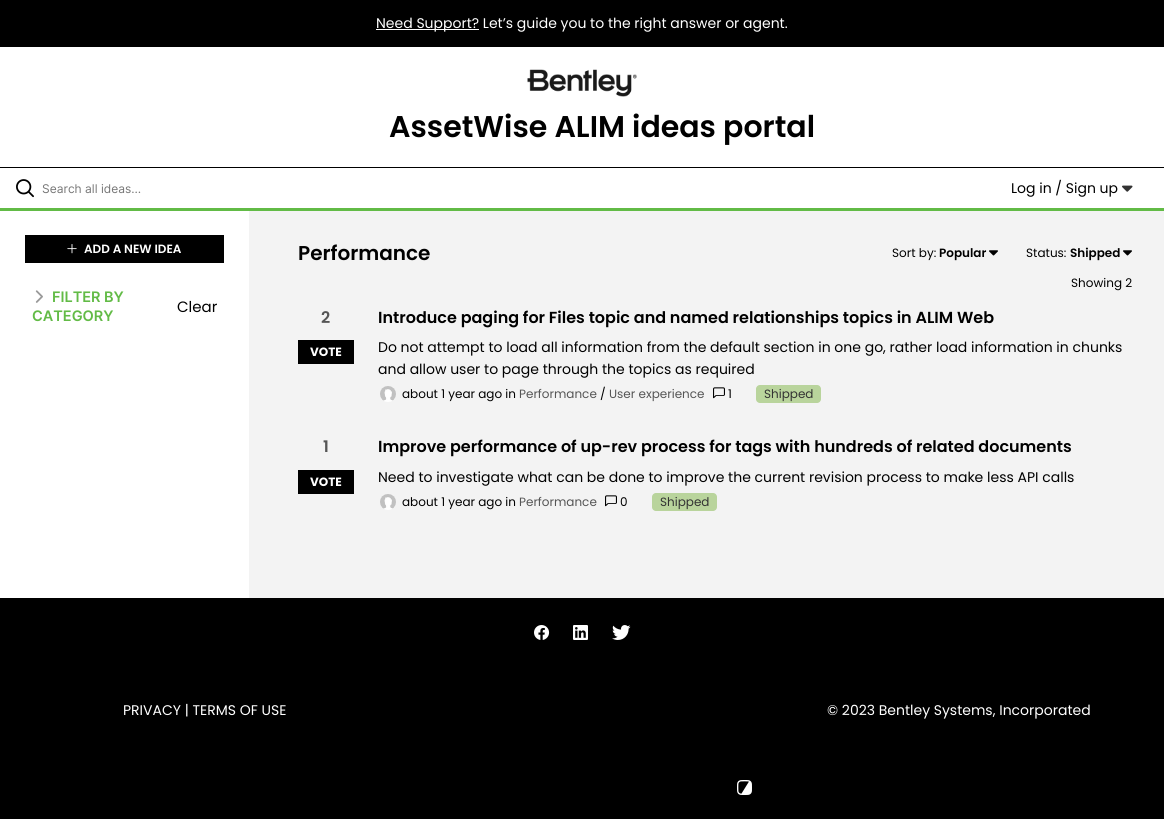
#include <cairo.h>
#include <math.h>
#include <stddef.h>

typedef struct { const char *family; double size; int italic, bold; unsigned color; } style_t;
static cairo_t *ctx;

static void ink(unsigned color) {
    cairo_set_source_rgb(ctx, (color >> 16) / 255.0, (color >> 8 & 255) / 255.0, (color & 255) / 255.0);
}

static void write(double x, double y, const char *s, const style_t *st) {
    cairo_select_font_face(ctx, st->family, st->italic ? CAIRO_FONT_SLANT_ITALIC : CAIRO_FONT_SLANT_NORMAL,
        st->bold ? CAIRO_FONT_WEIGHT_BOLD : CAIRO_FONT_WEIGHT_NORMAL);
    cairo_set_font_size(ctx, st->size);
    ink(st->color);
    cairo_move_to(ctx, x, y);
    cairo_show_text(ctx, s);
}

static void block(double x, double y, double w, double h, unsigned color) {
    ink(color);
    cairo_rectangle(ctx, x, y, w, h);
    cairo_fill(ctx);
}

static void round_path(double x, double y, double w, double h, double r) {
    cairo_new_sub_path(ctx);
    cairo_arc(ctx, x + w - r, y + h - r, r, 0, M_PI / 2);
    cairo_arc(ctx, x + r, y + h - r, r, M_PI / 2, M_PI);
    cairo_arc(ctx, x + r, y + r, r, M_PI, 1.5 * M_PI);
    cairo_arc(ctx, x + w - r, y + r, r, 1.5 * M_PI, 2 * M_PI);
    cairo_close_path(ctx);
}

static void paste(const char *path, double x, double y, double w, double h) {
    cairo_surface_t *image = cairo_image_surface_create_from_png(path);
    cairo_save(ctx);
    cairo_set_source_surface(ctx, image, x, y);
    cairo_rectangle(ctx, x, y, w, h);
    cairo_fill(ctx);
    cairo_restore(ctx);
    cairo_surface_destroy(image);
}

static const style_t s1 = {"Poppins", 14, 0, 0, 0xffffff};
static const style_t s2 = {"Poppins SemiBold", 30, 0, 0, 0x000000};
static const style_t s3 = {"Inter", 12, 0, 0, 0x767676};
static const style_t s4 = {"Poppins", 14, 0, 0, 0x000000};
static const style_t s5 = {"Poppins SemiBold", 12, 0, 0, 0xffffff};
static const style_t s6 = {"Inter SemiBold", 14.5, 0, 0, 0x62bb46};
static const style_t s7 = {"Poppins", 15, 0, 0, 0x000000};
static const style_t s8 = {"Poppins SemiBold", 20, 0, 0, 0x000000};
static const style_t s9 = {"Poppins", 12, 0, 0, 0x000000};
static const style_t s10 = {"Poppins SemiBold", 12, 0, 0, 0x000000};
static const style_t s11 = {"Poppins SemiBold", 16, 0, 0, 0x555555};
static const style_t s12 = {"Poppins", 12, 0, 1, 0xffffff};
static const style_t s13 = {"Poppins SemiBold", 16, 0, 0, 0x000000};
static const style_t s14 = {"Poppins", 12, 0, 0, 0x555555};
static const style_t s15 = {"Poppins", 12, 0, 0, 0x333333};

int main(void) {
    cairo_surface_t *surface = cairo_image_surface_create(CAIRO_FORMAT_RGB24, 1164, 819);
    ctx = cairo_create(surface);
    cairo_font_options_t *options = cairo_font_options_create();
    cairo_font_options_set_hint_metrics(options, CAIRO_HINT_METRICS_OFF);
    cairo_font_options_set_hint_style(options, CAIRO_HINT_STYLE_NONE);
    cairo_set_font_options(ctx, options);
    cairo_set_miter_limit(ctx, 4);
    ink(0xf3f3f3);
    cairo_paint(ctx);
    block(0, 0, 1164, 47, 0x000000);
    block(376, 29, 103, 1, 0xffffff);
    write(376, 28, "Need Support? Let’s guide you to the right answer or agent.", &s1);
    block(0, 47, 1164, 120, 0xffffff);
    block(0, 167, 1164, 1, 0x000000);
    paste("pic1.png", 527, 69, 110, 28);
    write(389, 137, "AssetWise ALIM ideas portal", &s2);
    block(0, 168, 1164, 40, 0xffffff);
    block(0, 208, 1164, 3, 0x62bb46);
    paste("pic2.png", 16, 179, 18, 19);
    write(42, 193, "Search all ideas…", &s3);
    write(1011, 193, "Log in / Sign up", &s4);
    paste("pic3.png", 1122, 185, 11, 7);
    block(0, 211, 249, 387, 0xffffff);
    block(25, 235, 199, 28, 0x000000);
    paste("pic4.png", 67, 244, 10, 10);
    write(84, 253, "ADD A NEW IDEA", &s5);
    paste("pic5.png", 35, 290, 8, 13);
    write(52, 302, "FILTER BY", &s6);
    write(32, 321, "CATEGORY", &s6);
    write(177, 312, "Clear", &s7);
    write(298, 260, "Performance", &s8);
    write(892, 257, "Sort by:", &s9);
    write(939, 257, "Popular", &s10);
    paste("pic6.png", 989, 250, 9, 6);
    write(1026, 257, "Status:", &s9);
    write(1070, 257, "Shipped", &s10);
    paste("pic6.png", 1123, 250, 9, 6);
    write(1071, 287, "Showing 2", &s9);
    write(321, 323, "2", &s11);
    block(298, 340, 56, 24, 0x000000);
    write(310, 356, "VOTE", &s12);
    write(378, 323, "Introduce paging for Files topic and named relationships topics in ALIM Web", &s13);
    write(378, 352, "Do not attempt to load all information from the default section in one go, rather load information in chunks", &s4);
    write(378, 374, "and allow user to page through the topics as required", &s4);
    paste("pic7.png", 380, 386, 16, 16);
    write(402, 398, "about 1 year ago in", &s9);
    write(519, 398, "Performance", &s14);
    write(600, 398, "/", &s9);
    write(609, 398, "User experience", &s14);
    paste("pic8.png", 713, 387, 12, 12);
    write(728, 398, "1", &s9);
    ink(0xb9d49c);
    round_path(756, 385, 65, 18, 4);
    cairo_fill(ctx);
    write(764, 398, "Shipped", &s15);
    write(323, 452, "1", &s11);
    block(298, 470, 56, 24, 0x000000);
    write(310, 486, "VOTE", &s12);
    write(378, 452, "Improve performance of up-rev process for tags with hundreds of related documents", &s13);
    write(378, 482, "Need to investigate what can be done to improve the current revision process to make less API calls", &s4);
    paste("pic9.png", 380, 494, 16, 16);
    write(402, 506, "about 1 year ago in", &s9);
    write(519, 506, "Performance", &s14);
    paste("pic8.png", 605, 495, 12, 12);
    write(620, 506, "0", &s9);
    ink(0xb9d49c);
    round_path(652, 493, 65, 18, 4);
    cairo_fill(ctx);
    write(660, 506, "Shipped", &s15);
    block(0, 598, 1164, 221, 0x000000);
    write(123, 715, "PRIVACY | TERMS OF USE", &s1);
    paste("pic10.png", 534, 625, 16, 15);
    paste("pic11.png", 573, 625, 15, 15);
    paste("pic12.png", 612, 625, 19, 15);
    paste("pic13.png", 737, 780, 15, 15);
    write(827, 715, "© 2023 Bentley Systems, Incorporated", &s1);
    cairo_surface_write_to_png(surface, "screenshot.png");
    cairo_font_options_destroy(options);
    cairo_destroy(ctx);
    cairo_surface_destroy(surface);
    return 0;
}
